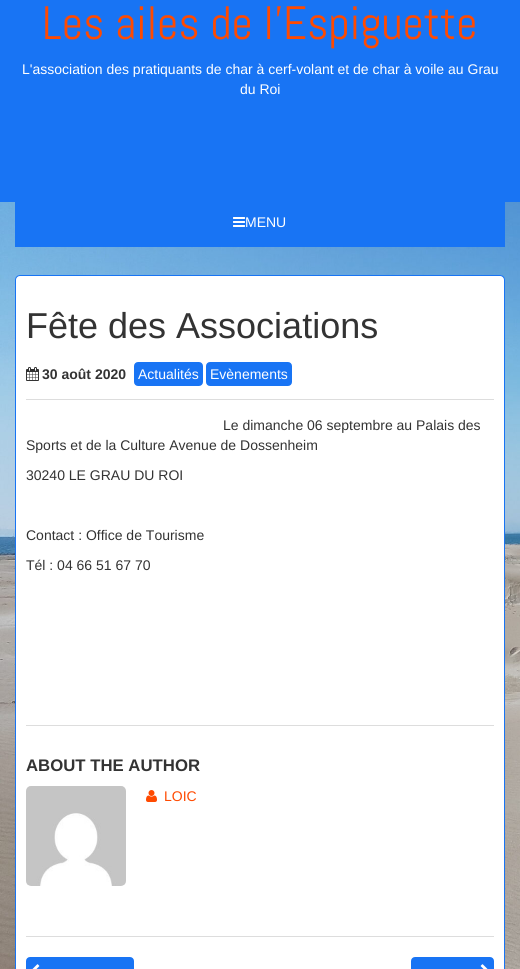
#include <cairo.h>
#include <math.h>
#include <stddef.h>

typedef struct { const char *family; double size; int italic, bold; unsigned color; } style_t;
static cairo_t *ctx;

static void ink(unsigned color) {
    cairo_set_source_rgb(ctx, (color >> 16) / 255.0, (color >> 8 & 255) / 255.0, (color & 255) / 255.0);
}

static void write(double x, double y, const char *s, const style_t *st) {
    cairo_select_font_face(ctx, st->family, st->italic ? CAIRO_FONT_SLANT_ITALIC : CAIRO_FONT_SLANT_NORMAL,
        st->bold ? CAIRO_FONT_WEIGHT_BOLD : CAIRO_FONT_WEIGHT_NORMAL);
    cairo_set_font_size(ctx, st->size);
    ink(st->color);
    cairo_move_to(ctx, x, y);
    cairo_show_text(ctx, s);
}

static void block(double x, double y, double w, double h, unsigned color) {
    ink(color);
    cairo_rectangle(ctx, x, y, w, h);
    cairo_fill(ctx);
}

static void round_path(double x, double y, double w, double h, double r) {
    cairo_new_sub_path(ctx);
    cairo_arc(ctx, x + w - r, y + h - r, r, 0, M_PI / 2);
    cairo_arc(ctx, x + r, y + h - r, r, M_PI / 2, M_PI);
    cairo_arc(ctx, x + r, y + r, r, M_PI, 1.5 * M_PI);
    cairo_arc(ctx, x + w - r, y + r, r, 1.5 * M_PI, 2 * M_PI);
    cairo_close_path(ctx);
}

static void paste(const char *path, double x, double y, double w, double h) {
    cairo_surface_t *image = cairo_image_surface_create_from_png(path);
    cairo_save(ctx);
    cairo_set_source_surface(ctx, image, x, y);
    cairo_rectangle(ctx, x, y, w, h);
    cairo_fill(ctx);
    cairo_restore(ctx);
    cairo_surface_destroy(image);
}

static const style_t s1 = {"Abel", 46.75, 0, 0, 0xff4a01};
static const style_t s2 = {"Liberation Sans", 14, 0, 0, 0xffffff};
static const style_t s3 = {"Liberation Sans", 36, 0, 0, 0x333333};
static const style_t s4 = {"Liberation Sans", 14, 0, 1, 0x333333};
static const style_t s5 = {"Liberation Sans", 14, 0, 0, 0x333333};
static const style_t s6 = {"Liberation Sans", 16.75, 0, 1, 0x333333};
static const style_t s7 = {"Liberation Sans", 14, 0, 0, 0xff4a01};

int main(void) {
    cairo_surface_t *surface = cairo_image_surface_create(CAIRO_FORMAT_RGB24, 520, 969);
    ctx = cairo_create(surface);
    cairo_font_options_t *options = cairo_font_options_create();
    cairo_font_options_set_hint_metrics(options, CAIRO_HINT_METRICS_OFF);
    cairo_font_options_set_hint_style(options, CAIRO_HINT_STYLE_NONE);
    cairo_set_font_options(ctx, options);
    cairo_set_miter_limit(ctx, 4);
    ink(0xffffff);
    cairo_paint(ctx);
    paste("pic1.png", 0, 202, 520, 767);
    block(0, 0, 520, 202, 0x1874f4);
    write(42, 39, "Les ailes de l'Espiguette", &s1);
    write(22, 74, "L'association des pratiquants de char à cerf-volant et de char à voile au Grau", &s2);
    write(240, 94, "du Roi", &s2);
    block(15, 202, 490, 45, 0x1874f4);
    paste("pic2.png", 233, 217, 12, 10);
    write(245, 227, "MENU", &s2);
    round_path(15.5, 275.5, 489, 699, 4.5);
    cairo_fill_preserve(ctx);
    ink(0x1874f4);
    cairo_set_line_width(ctx, 1);
    cairo_stroke(ctx);
    block(26, 399, 468, 1, 0xdddddd);
    write(26, 338, "Fête des Associations", &s3);
    paste("pic3.png", 26, 367, 13, 14);
    write(42, 379, "30 août 2020", &s4);
    ink(0x1874f4);
    round_path(135, 363, 67, 22, 3);
    cairo_fill_preserve(ctx);
    cairo_set_line_width(ctx, 2);
    cairo_stroke(ctx);
    write(138, 379, "Actualités", &s2);
    ink(0x1874f4);
    round_path(207, 363, 84, 22, 3);
    cairo_fill_preserve(ctx);
    cairo_stroke(ctx);
    write(210, 379, "Evènements", &s2);
    write(223, 430, "Le dimanche 06 septembre au Palais des", &s5);
    write(26, 450, "Sports et de la Culture Avenue de Dossenheim", &s5);
    write(26, 480, "30240 LE GRAU DU ROI", &s5);
    write(26, 540, "Contact : Office de Tourisme", &s5);
    write(26, 570, "Tél : 04 66 51 67 70", &s5);
    block(26, 725, 468, 1, 0xdddddd);
    block(26, 936, 468, 1, 0xdddddd);
    write(26, 771, "ABOUT THE AUTHOR", &s6);
    paste("pic4.png", 26, 786, 100, 100);
    paste("pic5.png", 146, 790, 11, 12);
    write(164, 801, "LOIC", &s7);
    ink(0x1874f4);
    round_path(27, 958, 106, 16, 3);
    cairo_fill_preserve(ctx);
    cairo_stroke(ctx);
    paste("pic6.png", 32, 964, 8, 5);
    round_path(412, 958, 81, 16, 3);
    cairo_fill_preserve(ctx);
    cairo_stroke(ctx);
    paste("pic7.png", 480, 964, 8, 5);
    cairo_surface_write_to_png(surface, "screenshot.png");
    cairo_font_options_destroy(options);
    cairo_destroy(ctx);
    cairo_surface_destroy(surface);
    return 0;
}
